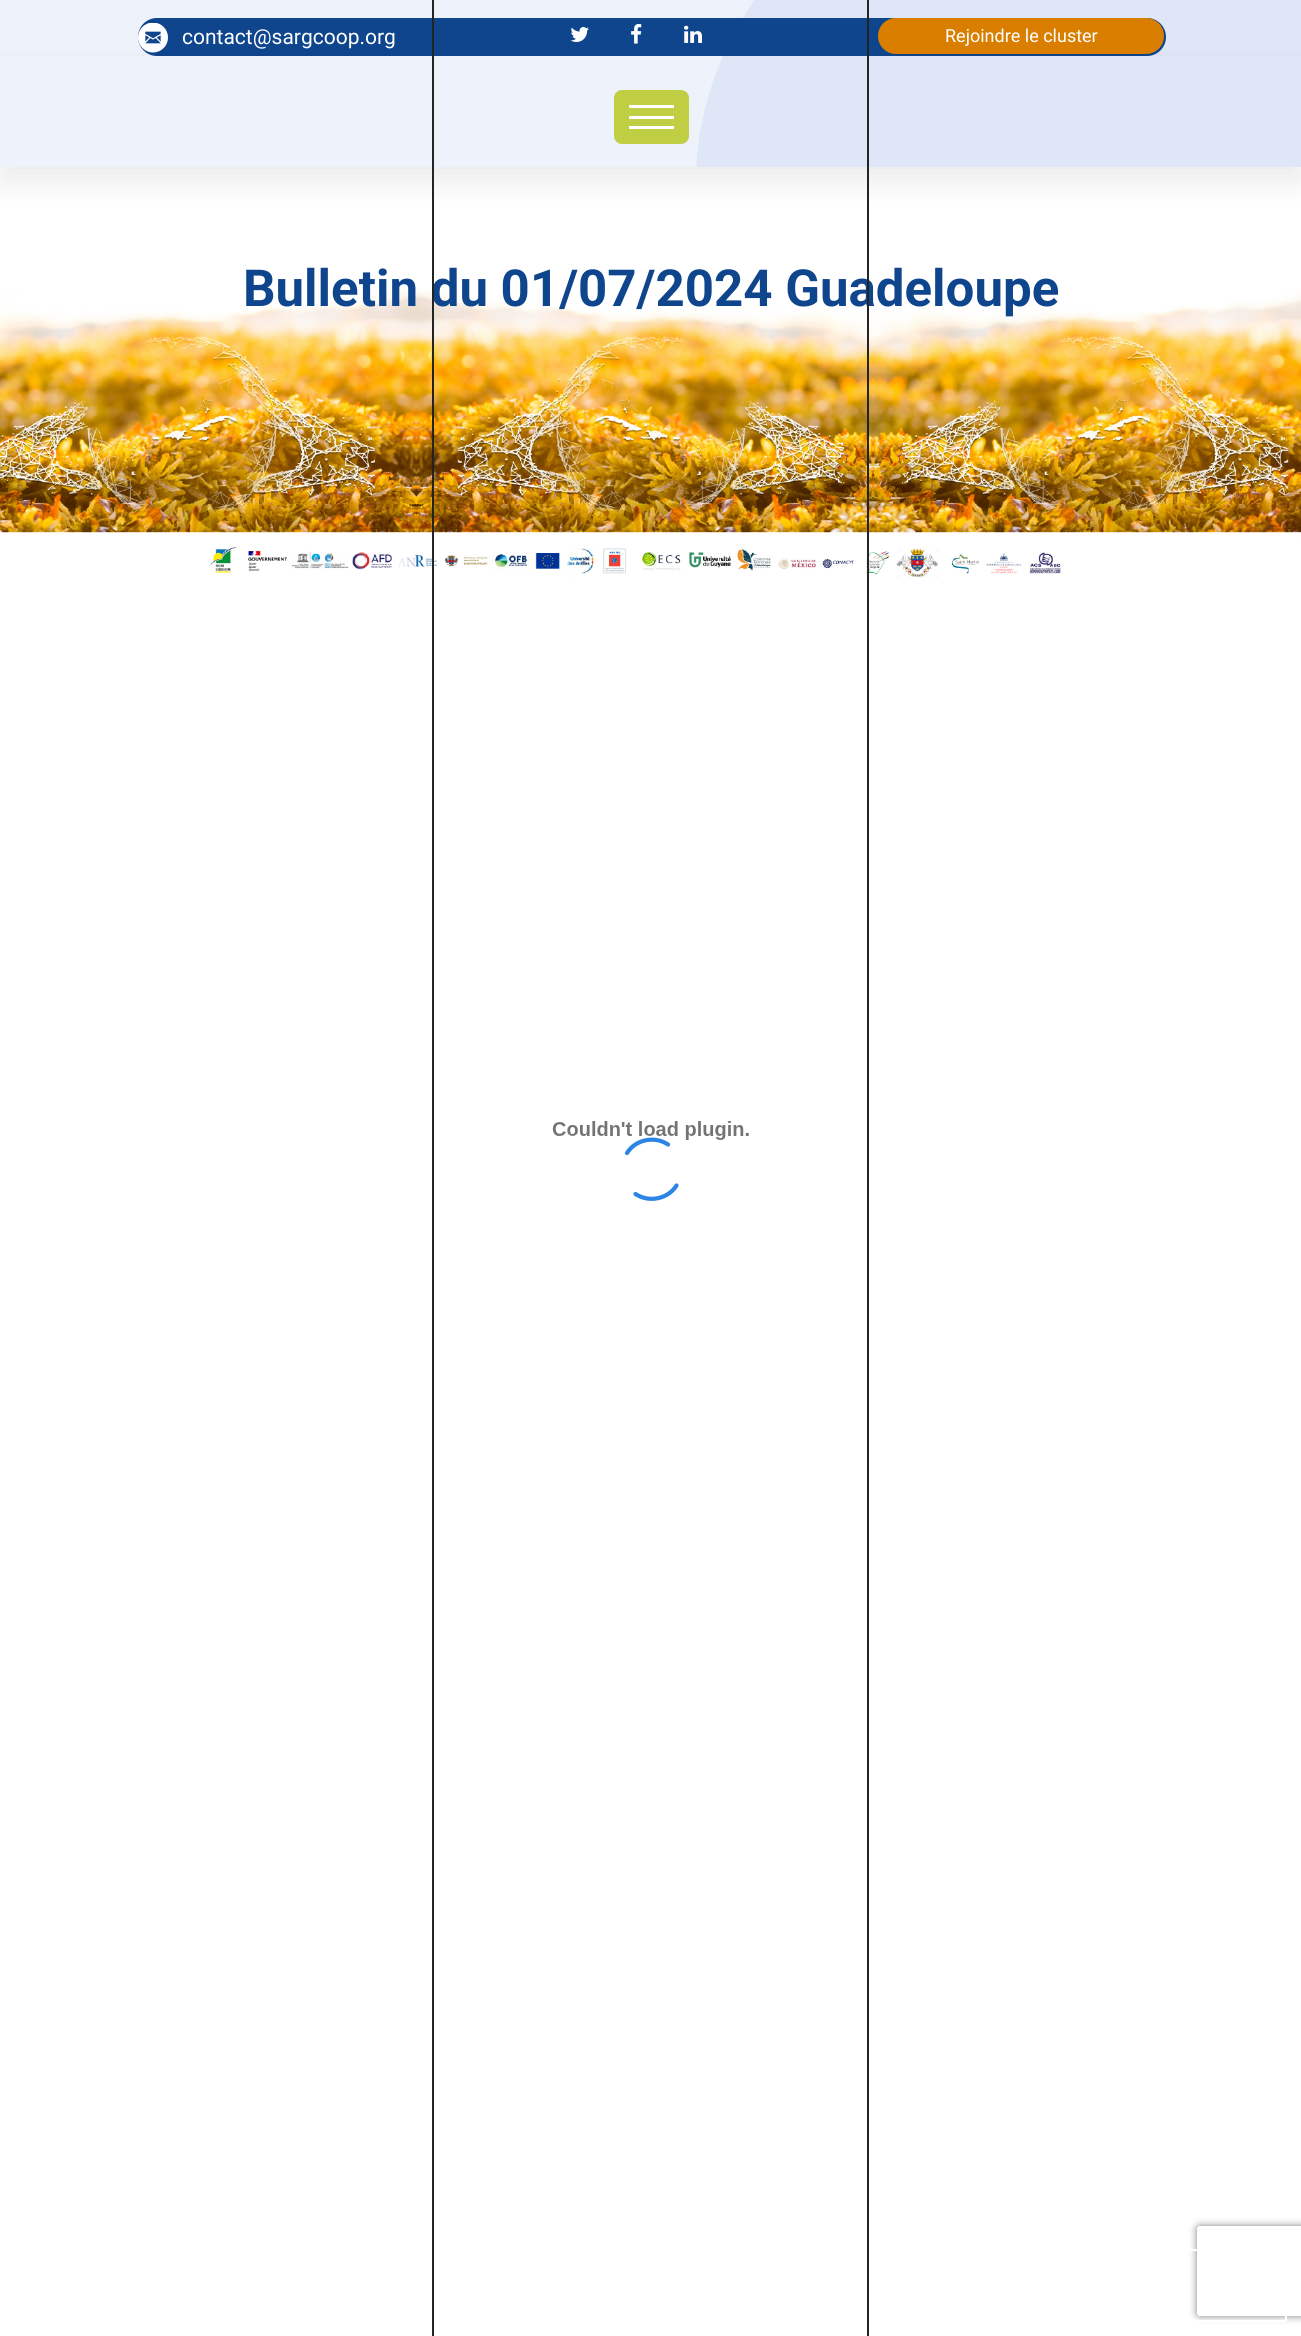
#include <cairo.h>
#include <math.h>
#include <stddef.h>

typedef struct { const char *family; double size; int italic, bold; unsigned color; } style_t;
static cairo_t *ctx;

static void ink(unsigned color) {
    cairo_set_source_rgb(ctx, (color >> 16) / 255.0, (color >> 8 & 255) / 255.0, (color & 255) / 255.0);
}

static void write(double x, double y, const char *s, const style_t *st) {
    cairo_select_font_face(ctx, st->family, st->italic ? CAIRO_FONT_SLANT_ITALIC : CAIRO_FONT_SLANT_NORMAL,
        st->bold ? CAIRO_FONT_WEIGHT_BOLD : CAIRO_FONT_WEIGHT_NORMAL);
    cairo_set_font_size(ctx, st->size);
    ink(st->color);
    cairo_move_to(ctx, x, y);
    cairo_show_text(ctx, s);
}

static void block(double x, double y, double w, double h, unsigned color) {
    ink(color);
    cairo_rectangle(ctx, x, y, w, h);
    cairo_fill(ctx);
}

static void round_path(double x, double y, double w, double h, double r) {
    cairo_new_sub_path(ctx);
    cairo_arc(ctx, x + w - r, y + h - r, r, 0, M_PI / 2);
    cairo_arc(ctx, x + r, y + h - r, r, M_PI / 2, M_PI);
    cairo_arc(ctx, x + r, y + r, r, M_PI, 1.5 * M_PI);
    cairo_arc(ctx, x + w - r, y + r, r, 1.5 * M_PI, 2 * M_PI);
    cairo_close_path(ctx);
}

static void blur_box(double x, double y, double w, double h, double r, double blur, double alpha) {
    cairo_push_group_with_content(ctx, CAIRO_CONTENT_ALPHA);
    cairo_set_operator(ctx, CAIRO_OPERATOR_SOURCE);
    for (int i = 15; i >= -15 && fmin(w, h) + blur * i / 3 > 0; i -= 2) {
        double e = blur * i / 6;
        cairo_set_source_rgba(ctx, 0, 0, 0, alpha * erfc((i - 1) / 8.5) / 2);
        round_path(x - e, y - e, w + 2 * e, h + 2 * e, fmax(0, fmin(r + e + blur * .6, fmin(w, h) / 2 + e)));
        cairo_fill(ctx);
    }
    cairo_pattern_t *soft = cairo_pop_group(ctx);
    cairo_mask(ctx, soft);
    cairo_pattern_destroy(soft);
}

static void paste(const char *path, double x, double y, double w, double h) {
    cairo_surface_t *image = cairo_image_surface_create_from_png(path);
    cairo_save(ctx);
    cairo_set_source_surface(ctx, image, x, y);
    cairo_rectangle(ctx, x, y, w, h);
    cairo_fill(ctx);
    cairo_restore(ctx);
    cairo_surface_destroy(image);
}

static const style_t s1 = {"Roboto", 51, 0, 1, 0x0f458d};
static const style_t s2 = {"Roboto", 21, 0, 0, 0xffffff};
static const style_t s3 = {"Roboto", 18, 0, 0, 0xffffff};

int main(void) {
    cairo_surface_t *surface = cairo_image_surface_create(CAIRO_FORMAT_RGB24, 1301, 2336);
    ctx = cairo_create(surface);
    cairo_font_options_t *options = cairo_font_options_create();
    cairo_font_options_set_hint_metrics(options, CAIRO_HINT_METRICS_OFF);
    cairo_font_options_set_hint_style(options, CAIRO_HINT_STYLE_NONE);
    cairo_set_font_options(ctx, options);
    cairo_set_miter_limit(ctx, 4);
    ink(0xffffff);
    cairo_paint(ctx);
    cairo_save(ctx);
    cairo_rectangle(ctx, 0, 0, 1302, 167);
    cairo_clip(ctx);
    ink(0xeef2fb);
    cairo_new_path(ctx);
    cairo_move_to(ctx, 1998, -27);
    cairo_curve_to(ctx, 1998, 183, 252, 556, -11, 556);
    cairo_curve_to(ctx, -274, 556, -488, 386, -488, 176);
    cairo_curve_to(ctx, -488, -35, -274, -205, -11, -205);
    cairo_curve_to(ctx, 252, -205, 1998, -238, 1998, -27);
    cairo_close_path(ctx);
    cairo_fill(ctx);
    cairo_restore(ctx);
    cairo_save(ctx);
    cairo_rectangle(ctx, 696, 0, 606, 167);
    cairo_clip(ctx);
    ink(0xdee6f7);
    cairo_new_path(ctx);
    cairo_move_to(ctx, 1172, -198);
    cairo_curve_to(ctx, 1435, -198, 1648, -27.5, 1648, 183);
    cairo_curve_to(ctx, 1648, 393.5, 1435, 564, 1172, 564);
    cairo_curve_to(ctx, 909, 564, 696, 393.5, 696, 183);
    cairo_curve_to(ctx, 696, -27.5, 909, -198, 1172, -198);
    cairo_close_path(ctx);
    cairo_fill(ctx);
    cairo_restore(ctx);
    ink(0x0f458d);
    round_path(138, 18, 1028, 38, 19);
    cairo_fill(ctx);
    paste("pic1.png", 138, 23, 30, 30);
    paste("pic2.png", 570, 27, 19, 15);
    paste("pic3.png", 631, 24, 11, 20);
    paste("pic4.png", 684, 25, 18, 18);
    ink(0xda7e00);
    round_path(878, 18, 286, 36, 18);
    cairo_fill(ctx);
    cairo_save(ctx);
    cairo_set_fill_rule(ctx, CAIRO_FILL_RULE_EVEN_ODD);
    cairo_new_path(ctx);
    cairo_move_to(ctx, 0, 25);
    cairo_line_to(ctx, 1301, 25);
    cairo_line_to(ctx, 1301, 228);
    cairo_line_to(ctx, 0, 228);
    cairo_close_path(ctx);
    cairo_move_to(ctx, 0, 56);
    cairo_line_to(ctx, 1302, 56);
    cairo_line_to(ctx, 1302, 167);
    cairo_line_to(ctx, 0, 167);
    cairo_close_path(ctx);
    cairo_clip(ctx);
    ink(0x000000);
    blur_box(0, 71, 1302, 111, 0, 15, 0.08);
    cairo_restore(ctx);
    paste("pic5.png", 0, 288, 1301, 290);
    write(243, 306, "Bulletin du 01/07/2024 Guadeloupe", &s1);
    cairo_set_source_rgba(ctx, 0.137, 0.137, 0.137, 0.99);
    cairo_rectangle(ctx, 432, 0, 2, 2336);
    cairo_fill(ctx);
    cairo_rectangle(ctx, 867, 0, 2, 2336);
    cairo_fill(ctx);
    paste("pic6.png", 552, 1121, 197, 19);
    cairo_new_path(ctx);
    cairo_move_to(ctx, 627, 1153);
    cairo_curve_to(ctx, 635.5, 1139.5, 654.5, 1135.5, 668, 1144.5);
    cairo_move_to(ctx, 676.5, 1185.5);
    cairo_curve_to(ctx, 668, 1199, 649, 1203, 635.5, 1194);
    ink(0x2c84e5);
    cairo_set_line_width(ctx, 4.2);
    cairo_set_line_cap(ctx, CAIRO_LINE_CAP_ROUND);
    cairo_stroke(ctx);
    cairo_save(ctx);
    cairo_set_fill_rule(ctx, CAIRO_FILL_RULE_EVEN_ODD);
    cairo_new_path(ctx);
    cairo_move_to(ctx, 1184, 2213);
    cairo_line_to(ctx, 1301, 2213);
    cairo_line_to(ctx, 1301, 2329);
    cairo_line_to(ctx, 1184, 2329);
    cairo_close_path(ctx);
    cairo_move_to(ctx, 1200, 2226);
    cairo_line_to(ctx, 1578, 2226);
    cairo_curve_to(ctx, 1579.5, 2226, 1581, 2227.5, 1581, 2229);
    cairo_line_to(ctx, 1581, 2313);
    cairo_curve_to(ctx, 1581, 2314.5, 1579.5, 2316, 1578, 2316);
    cairo_line_to(ctx, 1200, 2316);
    cairo_curve_to(ctx, 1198.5, 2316, 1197, 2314.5, 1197, 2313);
    cairo_line_to(ctx, 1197, 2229);
    cairo_curve_to(ctx, 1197, 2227.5, 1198.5, 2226, 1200, 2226);
    cairo_close_path(ctx);
    cairo_clip(ctx);
    ink(0x808080);
    blur_box(1197, 2226, 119, 90, 3, 4, 1);
    cairo_restore(ctx);
    cairo_rectangle(ctx, 1054, 2250, 232, 71);
    cairo_set_source_rgba(ctx, 1, 1, 1, 0.99);
    cairo_set_line_width(ctx, 2);
    cairo_set_line_cap(ctx, CAIRO_LINE_CAP_BUTT);
    cairo_stroke(ctx);
    ink(0xbfce42);
    round_path(614, 90, 75, 54, 8);
    cairo_fill(ctx);
    block(629, 105, 45, 3, 0xffffff);
    block(629, 116, 45, 3, 0xffffff);
    block(629, 126, 45, 3, 0xffffff);
    write(182, 44, "contact@sargcoop.org", &s2);
    write(945, 42, "Rejoindre le cluster", &s3);
    cairo_surface_write_to_png(surface, "screenshot.png");
    cairo_font_options_destroy(options);
    cairo_destroy(ctx);
    cairo_surface_destroy(surface);
    return 0;
}
